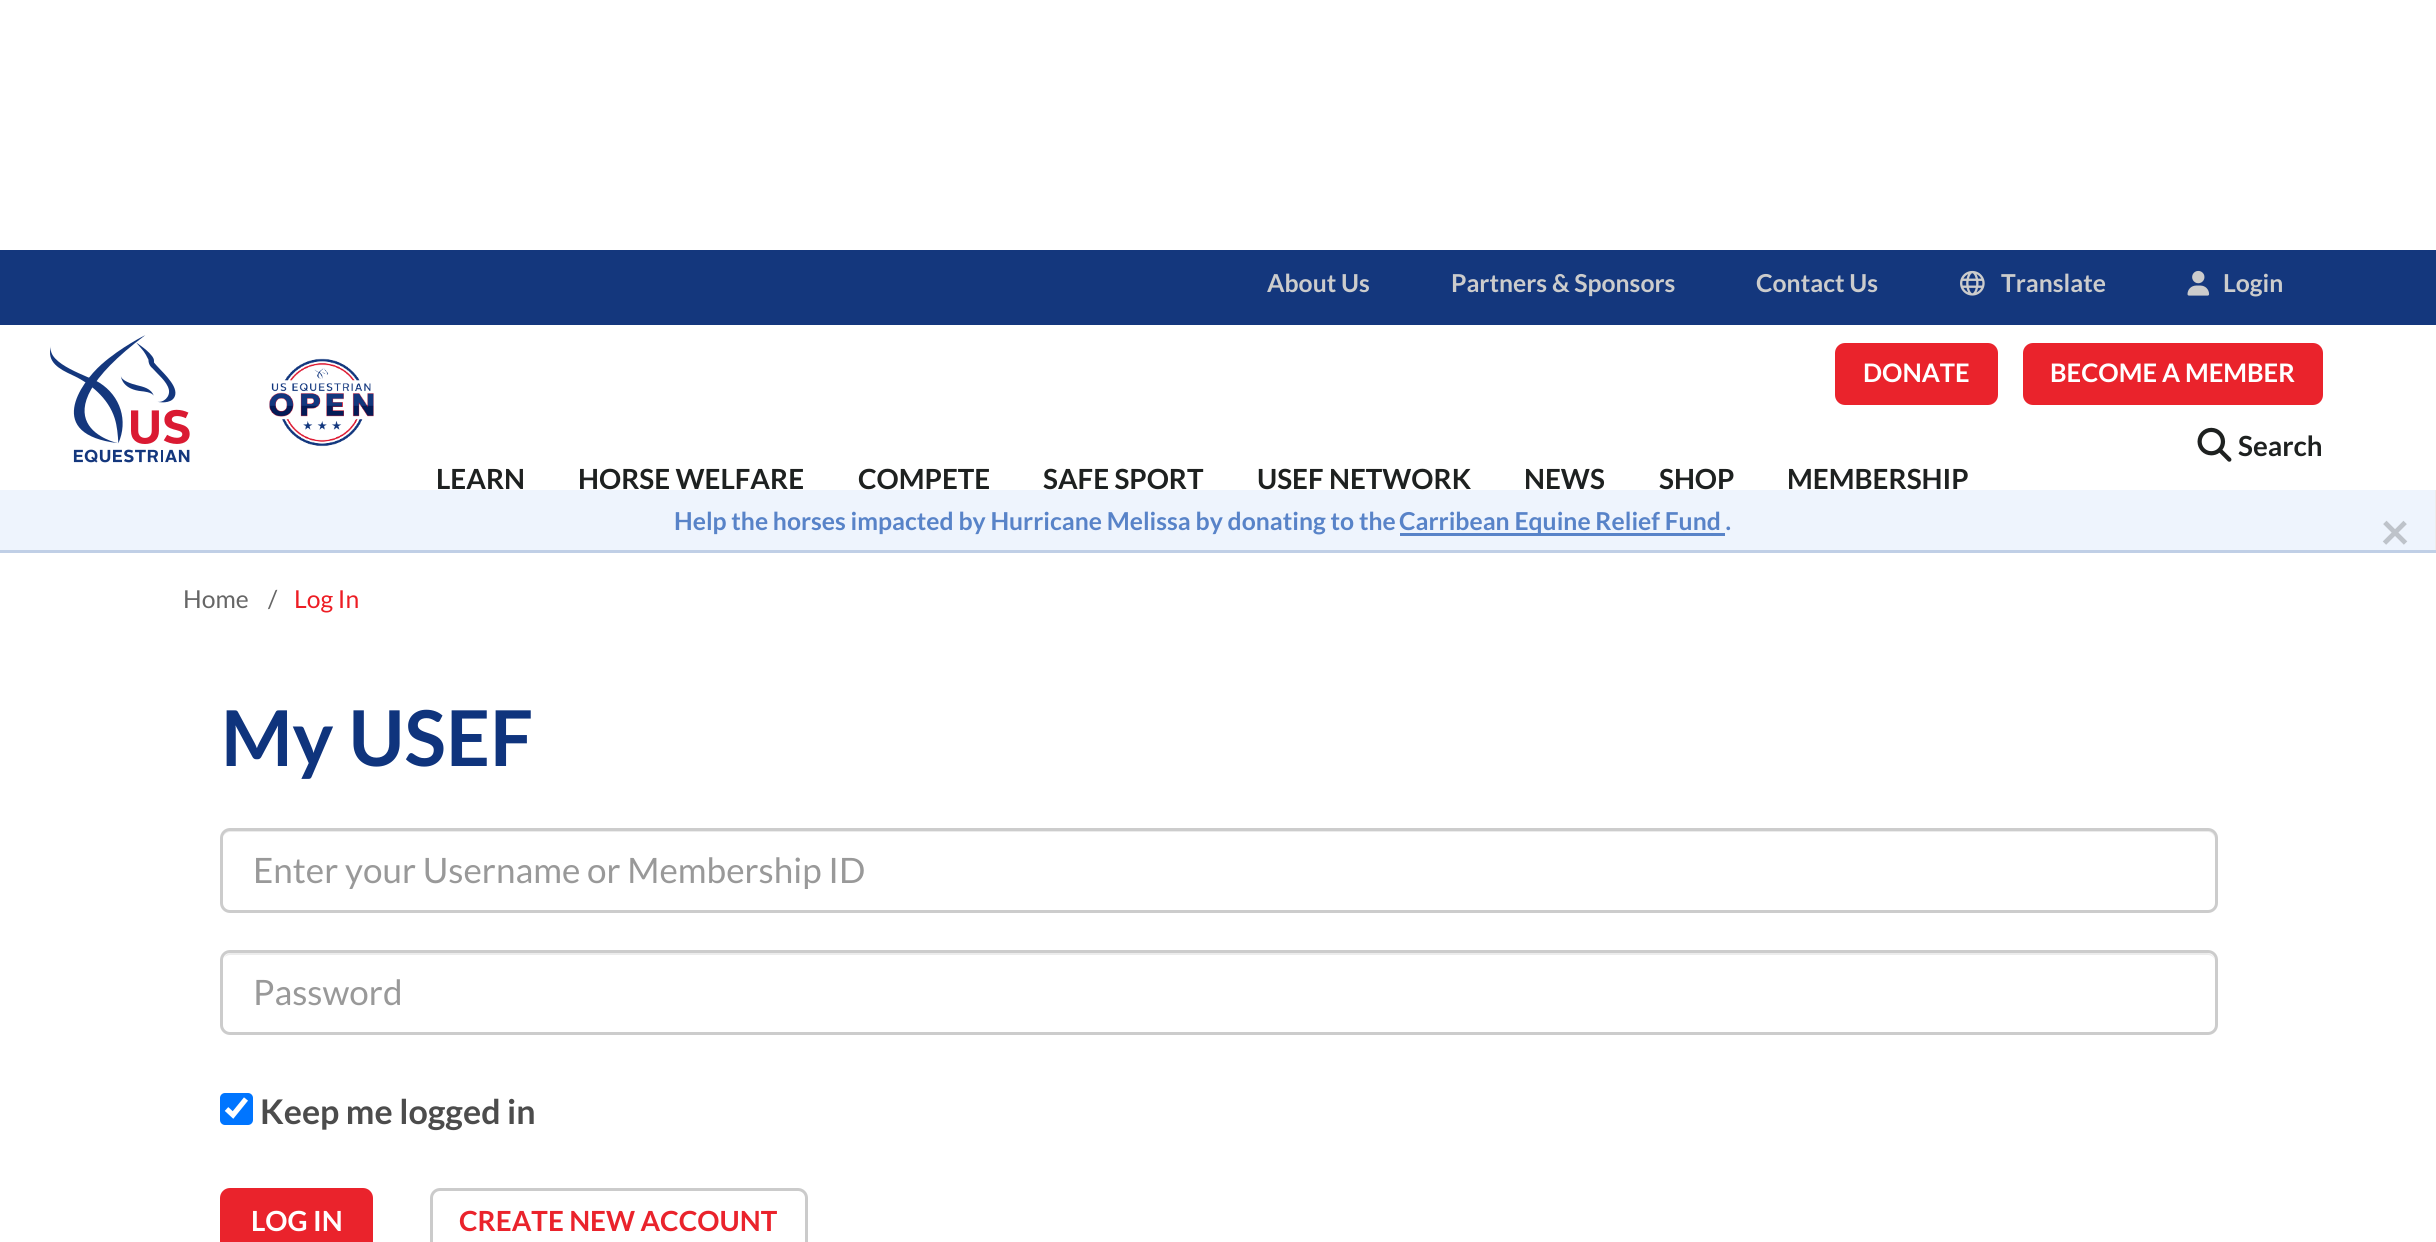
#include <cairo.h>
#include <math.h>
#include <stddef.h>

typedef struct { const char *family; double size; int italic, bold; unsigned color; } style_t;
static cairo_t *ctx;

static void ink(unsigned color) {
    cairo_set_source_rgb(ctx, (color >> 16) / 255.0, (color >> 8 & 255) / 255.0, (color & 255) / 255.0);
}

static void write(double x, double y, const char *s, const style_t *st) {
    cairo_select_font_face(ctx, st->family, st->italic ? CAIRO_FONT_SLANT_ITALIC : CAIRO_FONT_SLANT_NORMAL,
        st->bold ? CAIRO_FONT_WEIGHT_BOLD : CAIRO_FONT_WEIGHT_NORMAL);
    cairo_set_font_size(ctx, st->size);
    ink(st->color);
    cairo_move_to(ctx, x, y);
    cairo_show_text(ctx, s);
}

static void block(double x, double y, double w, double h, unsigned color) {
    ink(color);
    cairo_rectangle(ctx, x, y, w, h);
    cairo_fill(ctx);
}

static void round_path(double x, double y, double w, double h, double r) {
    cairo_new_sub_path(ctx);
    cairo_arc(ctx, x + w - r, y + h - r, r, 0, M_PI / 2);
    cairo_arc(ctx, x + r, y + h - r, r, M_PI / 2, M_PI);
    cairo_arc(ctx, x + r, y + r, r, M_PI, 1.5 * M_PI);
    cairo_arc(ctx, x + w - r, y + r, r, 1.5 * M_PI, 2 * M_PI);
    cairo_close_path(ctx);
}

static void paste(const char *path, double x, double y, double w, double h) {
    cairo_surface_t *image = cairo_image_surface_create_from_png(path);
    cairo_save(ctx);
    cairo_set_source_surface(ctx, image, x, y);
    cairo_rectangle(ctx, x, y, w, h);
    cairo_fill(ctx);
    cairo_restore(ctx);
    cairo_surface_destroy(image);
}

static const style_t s1 = {"Lato", 24.7, 0, 1, 0xcccccc};
static const style_t s2 = {"Lato", 25.5, 0, 1, 0xffffff};
static const style_t s3 = {"Lato", 27.75, 0, 1, 0x1e2120};
static const style_t s4 = {"Lato", 24.7, 0, 1, 0x5883c8};
static const style_t s5 = {"Lato", 52, 0, 1, 0xbec3ca};
static const style_t s6 = {"Lato", 24.7, 0, 0, 0x666666};
static const style_t s7 = {"Lato", 24.7, 0, 0, 0xed1d24};
static const style_t s8 = {"Lato", 77, 0, 1, 0x0f347d};
static const style_t s9 = {"Lato", 35, 0, 0, 0x999999};
static const style_t s10 = {"Lato", 34, 0, 1, 0x4c4c4c};
static const style_t s11 = {"Lato", 27.75, 0, 1, 0xffffff};
static const style_t s12 = {"Lato", 27.75, 0, 1, 0xea232c};

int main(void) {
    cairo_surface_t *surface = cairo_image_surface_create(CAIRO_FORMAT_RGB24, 2436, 1242);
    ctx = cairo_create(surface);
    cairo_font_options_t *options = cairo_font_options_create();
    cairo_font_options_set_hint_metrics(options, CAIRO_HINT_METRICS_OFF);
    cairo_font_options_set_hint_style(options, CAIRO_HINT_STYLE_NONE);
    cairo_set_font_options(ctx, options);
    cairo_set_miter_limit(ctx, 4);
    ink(0xffffff);
    cairo_paint(ctx);
    block(0, 250, 2436, 75, 0x14377d);
    write(1267, 292, "About Us", &s1);
    write(1451, 292, "Partners & Sponsors", &s1);
    write(1756, 292, "Contact Us", &s1);
    paste("pic1.png", 1960, 270, 25, 26);
    write(2001, 292, "Translate", &s1);
    paste("pic2.png", 2187, 270, 23, 26);
    write(2223, 292, "Login", &s1);
    paste("pic3.png", 50, 335, 140, 128);
    paste("pic4.png", 269, 358, 105, 89);
    ink(0xea232c);
    round_path(1836.5, 344.5, 160, 59, 8.5);
    cairo_fill_preserve(ctx);
    cairo_set_line_width(ctx, 3);
    cairo_stroke(ctx);
    write(1863, 382, "DONATE", &s2);
    ink(0xea232c);
    round_path(2024.5, 344.5, 297, 59, 8.5);
    cairo_fill_preserve(ctx);
    cairo_stroke(ctx);
    write(2050, 382, "BECOME A MEMBER", &s2);
    paste("pic5.png", 2197, 427, 35, 35);
    write(2238, 456, "Search", &s3);
    write(436, 489, "LEARN", &s3);
    write(578, 489, "HORSE WELFARE", &s3);
    write(858, 489, "COMPETE", &s3);
    write(1043, 489, "SAFE SPORT", &s3);
    write(1257, 489, "USEF NETWORK", &s3);
    write(1524, 489, "NEWS", &s3);
    write(1659, 489, "SHOP", &s3);
    write(1787, 489, "MEMBERSHIP", &s3);
    block(0, 490, 2435, 60, 0xeef4fd);
    block(2435, 490, 1, 63, 0xeeeeee);
    block(0, 550, 2436, 3, 0xc0cfe6);
    write(674, 530, "Help the horses impacted by Hurricane Melissa by donating to the", &s4);
    block(1400, 533, 325, 3, 0x5883c8);
    write(1399, 530, "Carribean Equine Relief Fund .", &s4);
    write(2380, 550, "×", &s5);
    write(183, 608, "Home", &s6);
    write(268, 608, "/", &s6);
    write(294, 608, "Log In", &s7);
    write(221, 766, "My USEF", &s8);
    ink(0xececec);
    cairo_new_path(ctx);
    cairo_move_to(ctx, 230, 832);
    cairo_line_to(ctx, 2208, 832);
    cairo_curve_to(ctx, 2212, 832, 2215, 836, 2215, 840);
    cairo_line_to(ctx, 2215, 838);
    cairo_curve_to(ctx, 2215, 834, 2211, 830, 2207, 830);
    cairo_line_to(ctx, 231, 830);
    cairo_curve_to(ctx, 227, 830, 224, 833, 223, 836);
    cairo_curve_to(ctx, 225, 834, 227, 832, 230, 832);
    cairo_close_path(ctx);
    cairo_fill(ctx);
    round_path(221.5, 829.5, 1995, 82, 8.5);
    ink(0xcccccc);
    cairo_stroke(ctx);
    write(253, 883, "Enter your Username or Membership ID", &s9);
    ink(0xececec);
    cairo_new_path(ctx);
    cairo_move_to(ctx, 230, 955);
    cairo_line_to(ctx, 2208, 955);
    cairo_curve_to(ctx, 2212, 955, 2215, 958, 2215, 962);
    cairo_line_to(ctx, 2215, 961);
    cairo_curve_to(ctx, 2215, 957, 2211, 953, 2207, 953);
    cairo_line_to(ctx, 231, 953);
    cairo_curve_to(ctx, 228, 953, 225, 955, 224, 958);
    cairo_curve_to(ctx, 225, 956, 228, 955, 230, 955);
    cairo_close_path(ctx);
    cairo_fill(ctx);
    round_path(221.5, 951.5, 1995, 82, 8.5);
    ink(0xcccccc);
    cairo_stroke(ctx);
    write(253, 1005, "Password", &s9);
    ink(0x0075ff);
    round_path(220, 1093, 33, 32, 5);
    cairo_fill(ctx);
    cairo_new_path(ctx);
    cairo_move_to(ctx, 226.5, 1109);
    cairo_line_to(ctx, 233, 1115);
    cairo_line_to(ctx, 246, 1099);
    ink(0xffffff);
    cairo_set_line_width(ctx, 5.2);
    cairo_stroke(ctx);
    write(260, 1124, "Keep me logged in", &s10);
    ink(0xea232c);
    round_path(221.5, 1189.5, 150, 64, 8.5);
    cairo_fill_preserve(ctx);
    cairo_set_line_width(ctx, 3);
    cairo_stroke(ctx);
    write(251, 1231, "LOG IN", &s11);
    round_path(431.5, 1189.5, 375, 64, 8.5);
    ink(0xcbcbcb);
    cairo_stroke(ctx);
    write(459, 1231, "CREATE NEW ACCOUNT", &s12);
    cairo_surface_write_to_png(surface, "screenshot.png");
    cairo_font_options_destroy(options);
    cairo_destroy(ctx);
    cairo_surface_destroy(surface);
    return 0;
}
